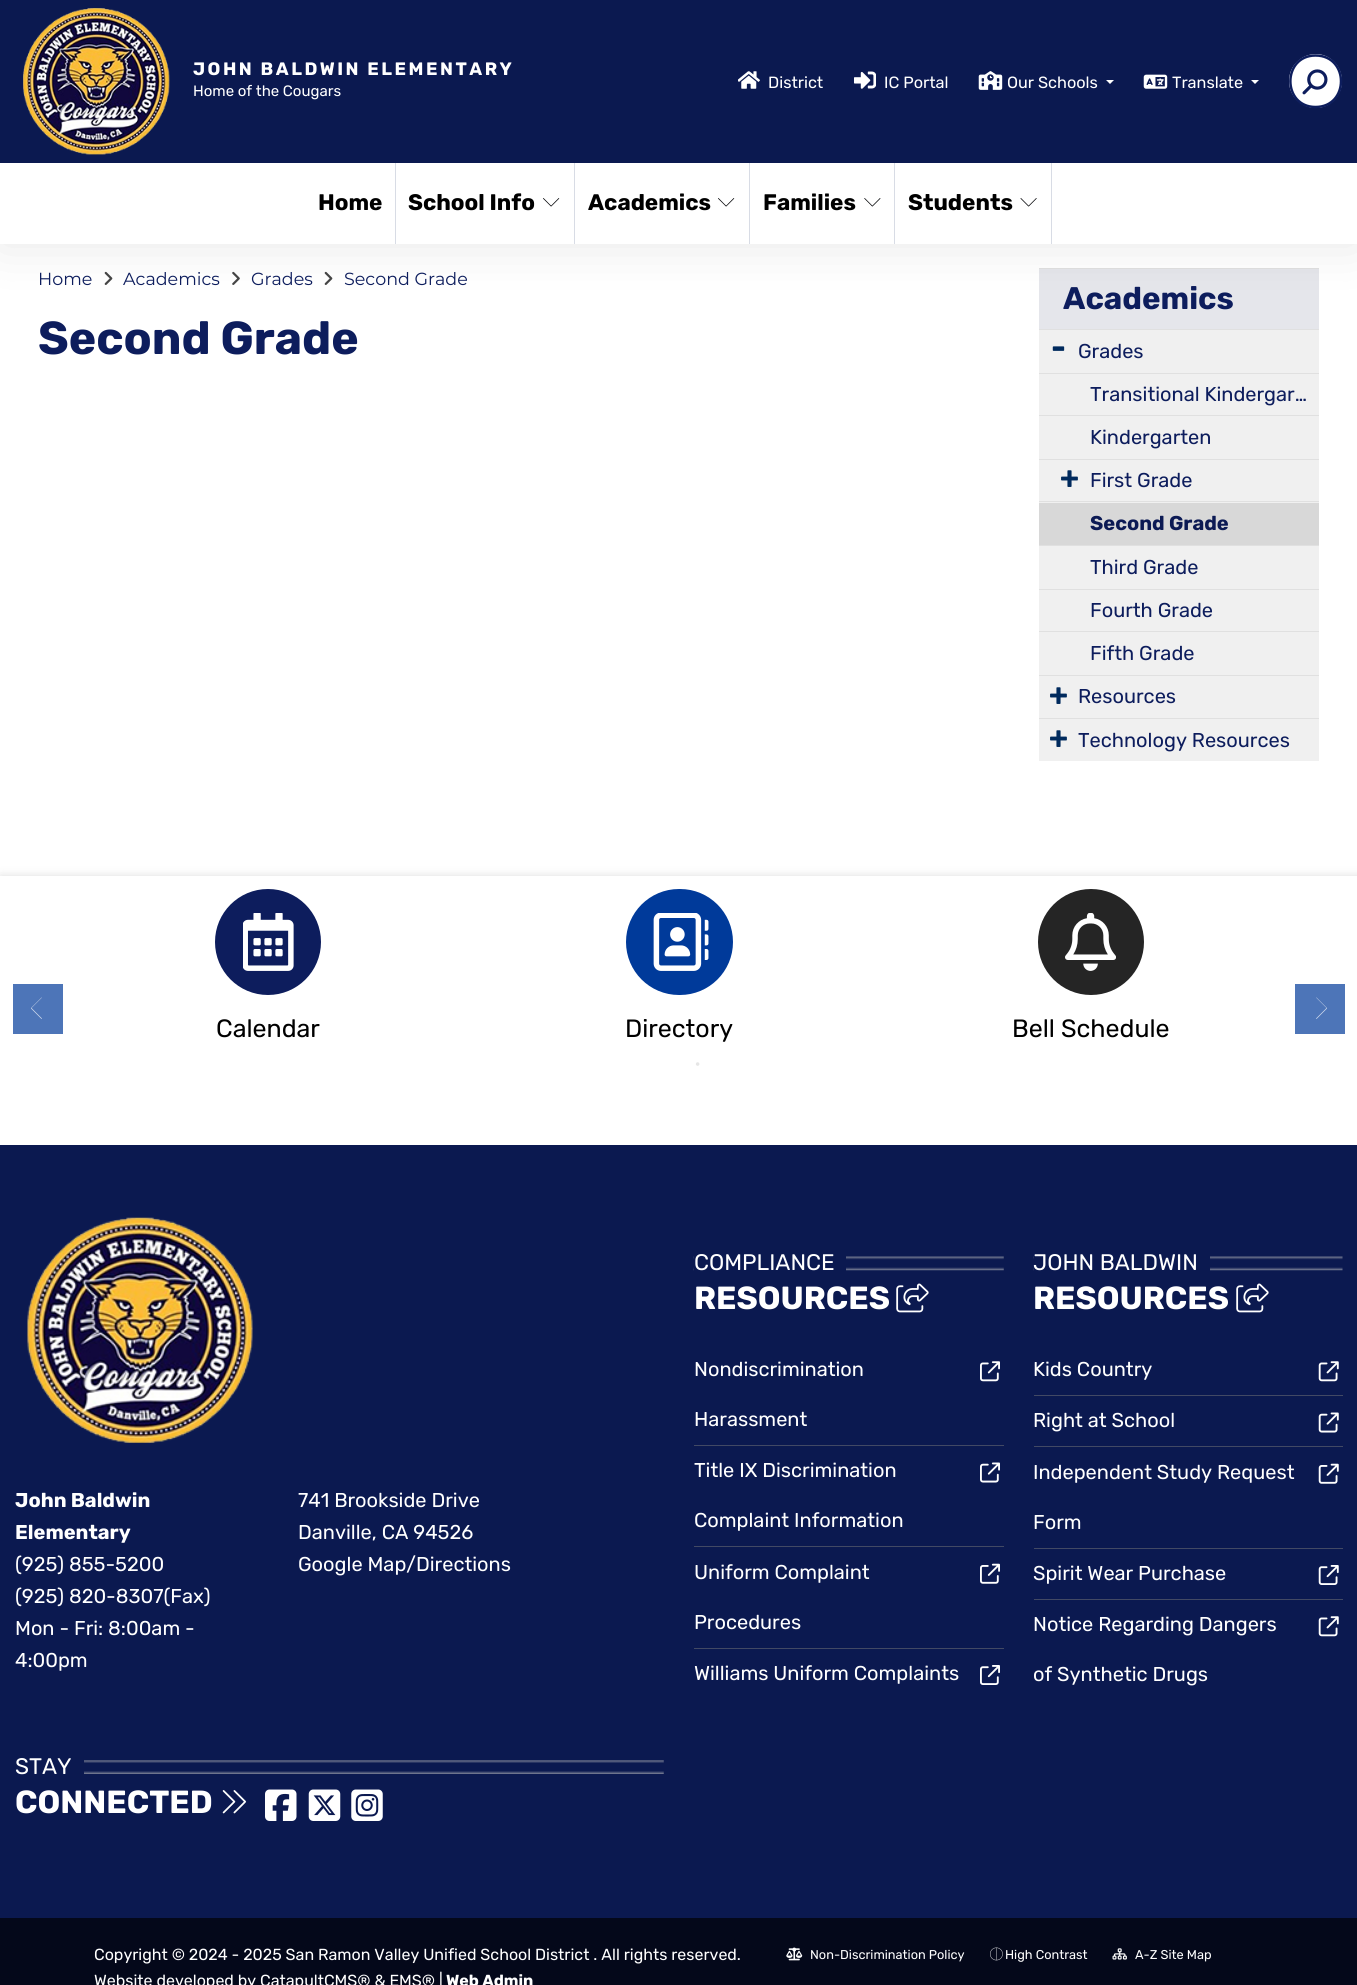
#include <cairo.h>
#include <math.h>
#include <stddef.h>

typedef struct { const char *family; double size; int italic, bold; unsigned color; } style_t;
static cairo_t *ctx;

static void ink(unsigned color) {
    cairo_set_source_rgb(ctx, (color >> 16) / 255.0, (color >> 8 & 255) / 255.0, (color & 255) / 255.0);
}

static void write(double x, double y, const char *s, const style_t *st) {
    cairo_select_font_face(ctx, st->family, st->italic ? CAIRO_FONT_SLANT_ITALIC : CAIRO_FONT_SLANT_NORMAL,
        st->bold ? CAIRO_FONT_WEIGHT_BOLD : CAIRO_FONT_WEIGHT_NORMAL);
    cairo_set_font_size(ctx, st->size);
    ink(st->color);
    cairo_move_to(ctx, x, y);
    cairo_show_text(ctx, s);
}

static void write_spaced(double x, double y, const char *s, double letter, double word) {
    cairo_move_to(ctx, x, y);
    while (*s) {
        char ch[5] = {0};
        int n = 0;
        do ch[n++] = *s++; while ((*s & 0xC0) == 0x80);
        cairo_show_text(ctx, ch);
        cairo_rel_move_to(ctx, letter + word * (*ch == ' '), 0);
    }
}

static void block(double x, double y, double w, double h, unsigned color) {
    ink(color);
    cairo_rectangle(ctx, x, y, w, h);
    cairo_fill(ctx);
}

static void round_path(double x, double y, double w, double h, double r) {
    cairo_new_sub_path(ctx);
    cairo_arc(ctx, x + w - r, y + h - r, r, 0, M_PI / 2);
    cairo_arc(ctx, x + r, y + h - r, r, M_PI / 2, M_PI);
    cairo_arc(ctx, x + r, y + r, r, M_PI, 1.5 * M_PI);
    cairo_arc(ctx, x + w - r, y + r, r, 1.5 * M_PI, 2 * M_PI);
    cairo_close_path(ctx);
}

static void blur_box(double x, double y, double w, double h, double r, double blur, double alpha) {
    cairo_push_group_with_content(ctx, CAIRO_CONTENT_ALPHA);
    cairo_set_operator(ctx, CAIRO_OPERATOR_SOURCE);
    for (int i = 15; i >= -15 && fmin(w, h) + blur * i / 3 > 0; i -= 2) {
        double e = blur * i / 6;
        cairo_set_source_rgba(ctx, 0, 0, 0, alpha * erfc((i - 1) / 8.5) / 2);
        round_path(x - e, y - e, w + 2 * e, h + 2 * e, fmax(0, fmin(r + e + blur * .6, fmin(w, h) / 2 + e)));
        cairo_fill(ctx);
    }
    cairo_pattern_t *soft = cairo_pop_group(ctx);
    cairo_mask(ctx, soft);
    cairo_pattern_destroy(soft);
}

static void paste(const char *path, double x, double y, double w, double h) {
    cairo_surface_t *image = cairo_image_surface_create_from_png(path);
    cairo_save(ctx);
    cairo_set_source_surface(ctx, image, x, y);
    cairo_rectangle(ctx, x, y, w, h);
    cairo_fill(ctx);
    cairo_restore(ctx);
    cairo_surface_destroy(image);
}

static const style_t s1 = {"Rubik", 15, 0, 0, 0xffffff};
static const style_t s2 = {"Rubik", 16.25, 0, 0, 0xffffff};
static const style_t s3 = {"Rubik", 22.5, 0, 1, 0x000000};
static const style_t s4 = {"Montserrat", 17.5, 0, 0, 0x0d1d5d};
static const style_t s5 = {"Rubik", 46.25, 0, 1, 0x0d1d5d};
static const style_t s6 = {"Rubik", 31.25, 0, 1, 0x0d1d5d};
static const style_t s7 = {"Rubik", 31.25, 0, 1, 0x002a5d};
static const style_t s8 = {"Rubik", 20, 0, 0, 0x0d1d5d};
static const style_t s9 = {"Rubik", 20, 0, 1, 0x0c1a54};
static const style_t s10 = {"Rubik", 25, 0, 0, 0x000000};
static const style_t s11 = {"Liberation Serif", 15, 0, 0, 0xe6e6e6};
static const style_t s12 = {"Rubik", 20, 0, 1, 0xffffff};
static const style_t s13 = {"Rubik", 20, 0, 0, 0xffffff};
static const style_t s14 = {"Rubik", 22.5, 0, 0, 0xffffff};
static const style_t s15 = {"Rubik", 32, 0, 1, 0xffffff};
static const style_t s16 = {"Rubik", 16, 0, 0, 0xffffff};
static const style_t s17 = {"Rubik", 16, 0, 1, 0xffffff};
static const style_t s18 = {"Rubik", 12.75, 0, 0, 0xffffff};

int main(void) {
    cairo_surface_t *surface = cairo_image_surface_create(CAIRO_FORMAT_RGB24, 1357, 1985);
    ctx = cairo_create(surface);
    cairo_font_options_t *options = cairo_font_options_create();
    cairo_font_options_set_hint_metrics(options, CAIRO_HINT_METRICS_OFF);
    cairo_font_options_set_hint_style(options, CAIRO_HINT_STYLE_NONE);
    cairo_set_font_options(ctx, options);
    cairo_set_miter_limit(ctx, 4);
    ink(0xffffff);
    cairo_paint(ctx);
    paste("pic10.png", 104, 271, 9, 14);
    paste("pic11.png", 232, 271, 8, 14);
    paste("pic10.png", 324, 271, 9, 14);
    block(1039, 269, 280, 60, 0xe5e6eb);
    block(1039, 268, 280, 1, 0xe0e0e0);
    ink(0x000000);
    blur_box(0, 0, 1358, 244, 0, 25, 0.1);
    block(0, 163, 1357, 81, 0xffffff);
    block(0, 0, 1357, 163, 0x0b1950);
    paste("pic1.png", 23, 8, 147, 147);
    cairo_select_font_face(ctx, "Rubik", CAIRO_FONT_SLANT_NORMAL, CAIRO_FONT_WEIGHT_BOLD);
    cairo_set_font_size(ctx, 18);
    ink(0xffffff);
    write_spaced(193, 75, "JOHN BALDWIN ELEMENTARY", 2.5, 0);
    write(193, 96, "Home of the Cougars", &s1);
    paste("pic2.png", 738, 71, 22, 18);
    write(768, 88, "District", &s2);
    paste("pic3.png", 854, 71, 22, 18);
    write(884, 88, "IC Portal", &s2);
    paste("pic4.png", 978, 71, 25, 19);
    write(1007, 88, "Our Schools", &s2);
    cairo_new_path(ctx);
    cairo_move_to(ctx, 1106, 80);
    cairo_line_to(ctx, 1114, 80);
    cairo_line_to(ctx, 1110, 84);
    cairo_close_path(ctx);
    cairo_fill(ctx);
    paste("pic5.png", 1143, 74, 25, 15);
    write(1172, 88, "Translate", &s2);
    cairo_new_path(ctx);
    cairo_move_to(ctx, 1251, 80);
    cairo_line_to(ctx, 1259, 80);
    cairo_line_to(ctx, 1255, 84);
    cairo_close_path(ctx);
    cairo_fill(ctx);
    cairo_new_path(ctx);
    cairo_move_to(ctx, 1316, 54);
    cairo_curve_to(ctx, 1301, 54, 1289, 66, 1289, 81);
    cairo_curve_to(ctx, 1289, 96, 1301, 108, 1316, 108);
    cairo_curve_to(ctx, 1330, 108, 1342, 96, 1342, 81);
    cairo_curve_to(ctx, 1342, 66, 1330, 54, 1316, 54);
    cairo_close_path(ctx);
    cairo_fill(ctx);
    cairo_new_path(ctx);
    cairo_move_to(ctx, 1315.5, 55.5);
    cairo_curve_to(ctx, 1282, 55.5, 1282, 107, 1315.5, 107);
    cairo_curve_to(ctx, 1349.5, 107, 1349.5, 55.5, 1315.5, 55.5);
    cairo_close_path(ctx);
    ink(0x0d1d5d);
    cairo_set_line_width(ctx, 2.5);
    cairo_stroke(ctx);
    paste("pic6.png", 1302, 69, 26, 26);
    block(395, 163, 1, 81, 0xd8dce5);
    write(318, 210, "Home", &s3);
    block(574, 163, 1, 81, 0xd8dce5);
    write(408, 210, "School Info", &s3);
    paste("pic7.png", 543, 198, 17, 9);
    block(749, 163, 1, 81, 0xd8dce5);
    write(588, 210, "Academics", &s3);
    paste("pic7.png", 718, 198, 17, 9);
    block(894, 163, 1, 81, 0xd8dce5);
    write(763, 210, "Families", &s3);
    paste("pic8.png", 864, 198, 17, 9);
    block(1051, 163, 1, 81, 0xd8dce5);
    write(908, 210, "Students", &s3);
    paste("pic9.png", 1020, 198, 17, 9);
    write(38, 285, "Home", &s4);
    write(123, 285, "Academics", &s4);
    write(251, 285, "Grades", &s4);
    write(344, 285, "Second Grade", &s4);
    write(38, 354, "Second Grade", &s5);
    write(1063, 309, "Academics", &s6);
    block(1039, 330, 280, 431, 0xf0f0f0);
    block(1039, 503, 280, 42, 0xd8d8d8);
    write(1051, 358, "-", &s7);
    block(1039, 329, 280, 1, 0xe0e0e0);
    write(1078, 358, "Grades", &s8);
    block(1039, 373, 280, 1, 0xe0e0e0);
    write(1090, 401, "Transitional Kindergar…", &s8);
    block(1039, 415, 280, 1, 0xe0e0e0);
    write(1090, 444, "Kindergarten", &s8);
    write(1060, 488, "+", &s7);
    block(1039, 459, 280, 1, 0xe0e0e0);
    write(1090, 487, "First Grade", &s8);
    block(1039, 501, 280, 1, 0xe0e0e0);
    write(1090, 530, "Second Grade", &s9);
    block(1039, 545, 280, 1, 0xe0e0e0);
    write(1090, 574, "Third Grade", &s8);
    block(1039, 589, 280, 1, 0xe0e0e0);
    write(1090, 617, "Fourth Grade", &s8);
    block(1039, 631, 280, 1, 0xe0e0e0);
    write(1090, 660, "Fifth Grade", &s8);
    write(1049, 705, "+", &s7);
    block(1039, 675, 280, 1, 0xe0e0e0);
    write(1078, 703, "Resources", &s8);
    write(1049, 748, "+", &s7);
    block(1039, 718, 280, 1, 0xe0e0e0);
    write(1078, 747, "Technology Resources", &s8);
    ink(0x000000);
    blur_box(1, 878, 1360, 271, 0, 5.5, 0.2);
    block(0, 876, 1357, 269, 0xffffff);
    block(13, 984, 50, 50, 0x4d75b8);
    ink(0xd3dded);
    cairo_new_path(ctx);
    cairo_move_to(ctx, 31, 1008);
    cairo_line_to(ctx, 31, 1008.5);
    cairo_line_to(ctx, 41.5, 1019);
    cairo_line_to(ctx, 42, 1018.5);
    cairo_line_to(ctx, 31.5, 1008);
    cairo_line_to(ctx, 42, 997.5);
    cairo_line_to(ctx, 41.5, 997.5);
    cairo_close_path(ctx);
    cairo_fill(ctx);
    ink(0x0d1d5d);
    cairo_arc(ctx, 268, 942, 53, 0, 2 * M_PI);
    cairo_fill(ctx);
    paste("pic12.png", 243, 913, 51, 58);
    write(216, 1037, "Calendar", &s10);
    ink(0x003a9a);
    round_path(626, 889, 107, 106, 53);
    cairo_fill(ctx);
    paste("pic13.png", 653, 913, 56, 58);
    write(625, 1037, "Directory", &s10);
    ink(0x252525);
    cairo_new_path(ctx);
    cairo_arc(ctx, 1091, 942, 53, 0, 2 * M_PI);
    cairo_fill(ctx);
    paste("pic14.png", 1065, 913, 51, 58);
    write(1012, 1037, "Bell Schedule", &s10);
    block(1295, 984, 50, 50, 0x4d75b8);
    ink(0xd3dded);
    cairo_new_path(ctx);
    cairo_move_to(ctx, 1327, 1008);
    cairo_line_to(ctx, 1327, 1008.5);
    cairo_line_to(ctx, 1316.5, 1019);
    cairo_line_to(ctx, 1316, 1018.5);
    cairo_line_to(ctx, 1326.5, 1008);
    cairo_line_to(ctx, 1316, 997.5);
    cairo_line_to(ctx, 1316.5, 997.5);
    cairo_close_path(ctx);
    cairo_fill(ctx);
    write(695, 1069, "•", &s11);
    block(0, 1145, 1357, 773, 0x0b1950);
    paste("pic15.png", 27, 1217, 226, 226);
    write(15, 1507, "John Baldwin", &s12);
    write(15, 1539, "Elementary", &s12);
    write(15, 1571, "(925) 855-5200", &s13);
    write(15, 1603, "(925) 820-8307(Fax)", &s13);
    write(15, 1635, "Mon - Fri: 8:00am -", &s13);
    write(15, 1667, "4:00pm", &s13);
    write(298, 1507, "741 Brookside Drive", &s13);
    write(298, 1539, "Danville, CA 94526", &s13);
    write(298, 1571, "Google Map/Directions", &s13);
    paste("pic16.png", 84, 1760, 580, 14);
    write(15, 1774, "STAY", &s14);
    write(15, 1813, "CONNECTED", &s15);
    paste("pic17.png", 222, 1790, 25, 24);
    paste("pic18.png", 265, 1789, 32, 32);
    paste("pic19.png", 308, 1789, 33, 32);
    paste("pic20.png", 351, 1789, 32, 32);
    paste("pic21.png", 693, 1256, 311, 15);
    block(694, 1256, 152, 15, 0x0b1950);
    write(694, 1270, "COMPLIANCE", &s14);
    write(694, 1309, "RESOURCES", &s15);
    paste("pic22.png", 896, 1283, 33, 30);
    block(694, 1445, 310, 1, 0x424964);
    write(694, 1376, "Nondiscrimination", &s13);
    paste("pic23.png", 980, 1361, 20, 21);
    write(694, 1426, "Harassment", &s13);
    block(694, 1546, 310, 1, 0x424964);
    write(694, 1477, "Title IX Discrimination", &s13);
    paste("pic24.png", 980, 1462, 20, 21);
    write(694, 1527, "Complaint Information", &s13);
    block(694, 1648, 310, 1, 0x424964);
    write(694, 1579, "Uniform Complaint", &s13);
    paste("pic25.png", 980, 1563, 20, 21);
    write(694, 1629, "Procedures", &s13);
    write(694, 1680, "Williams Uniform Complaints", &s13);
    paste("pic26.png", 980, 1665, 20, 20);
    paste("pic27.png", 1033, 1256, 310, 15);
    block(1034, 1256, 176, 15, 0x0b1950);
    write(1033, 1270, "JOHN BALDWIN", &s14);
    write(1033, 1309, "RESOURCES", &s15);
    paste("pic22.png", 1236, 1283, 33, 30);
    block(1034, 1395, 309, 1, 0x424964);
    write(1033, 1376, "Kids Country", &s13);
    paste("pic28.png", 1318, 1361, 21, 21);
    block(1034, 1446, 309, 1, 0x424964);
    write(1033, 1427, "Right at School", &s13);
    paste("pic29.png", 1318, 1412, 21, 21);
    block(1034, 1548, 309, 1, 0x424964);
    write(1033, 1479, "Independent Study Request", &s13);
    paste("pic30.png", 1318, 1463, 21, 21);
    write(1033, 1529, "Form", &s13);
    block(1034, 1599, 309, 1, 0x424964);
    write(1033, 1580, "Spirit Wear Purchase", &s13);
    paste("pic31.png", 1318, 1565, 21, 20);
    write(1033, 1631, "Notice Regarding Dangers", &s13);
    paste("pic28.png", 1318, 1616, 21, 21);
    write(1033, 1681, "of Synthetic Drugs", &s13);
    block(0, 1918, 1357, 67, 0x04081a);
    write(94, 1960, "Copyright © 2024 - 2025 San Ramon Valley Unified School District . All rights reserved.", &s16);
    write(94, 1986, "Website developed by CatapultCMS® & EMS® |", &s16);
    write(446, 1986, "Web Admin", &s17);
    paste("pic32.png", 786, 1947, 17, 14);
    write(810, 1959, "Non-Discrimination Policy", &s18);
    paste("pic33.png", 990, 1947, 13, 14);
    write(1005, 1959, "High Contrast", &s18);
    paste("pic34.png", 1112, 1948, 15, 12);
    write(1135, 1959, "A-Z Site Map", &s18);
    cairo_surface_write_to_png(surface, "screenshot.png");
    cairo_font_options_destroy(options);
    cairo_destroy(ctx);
    cairo_surface_destroy(surface);
    return 0;
}
